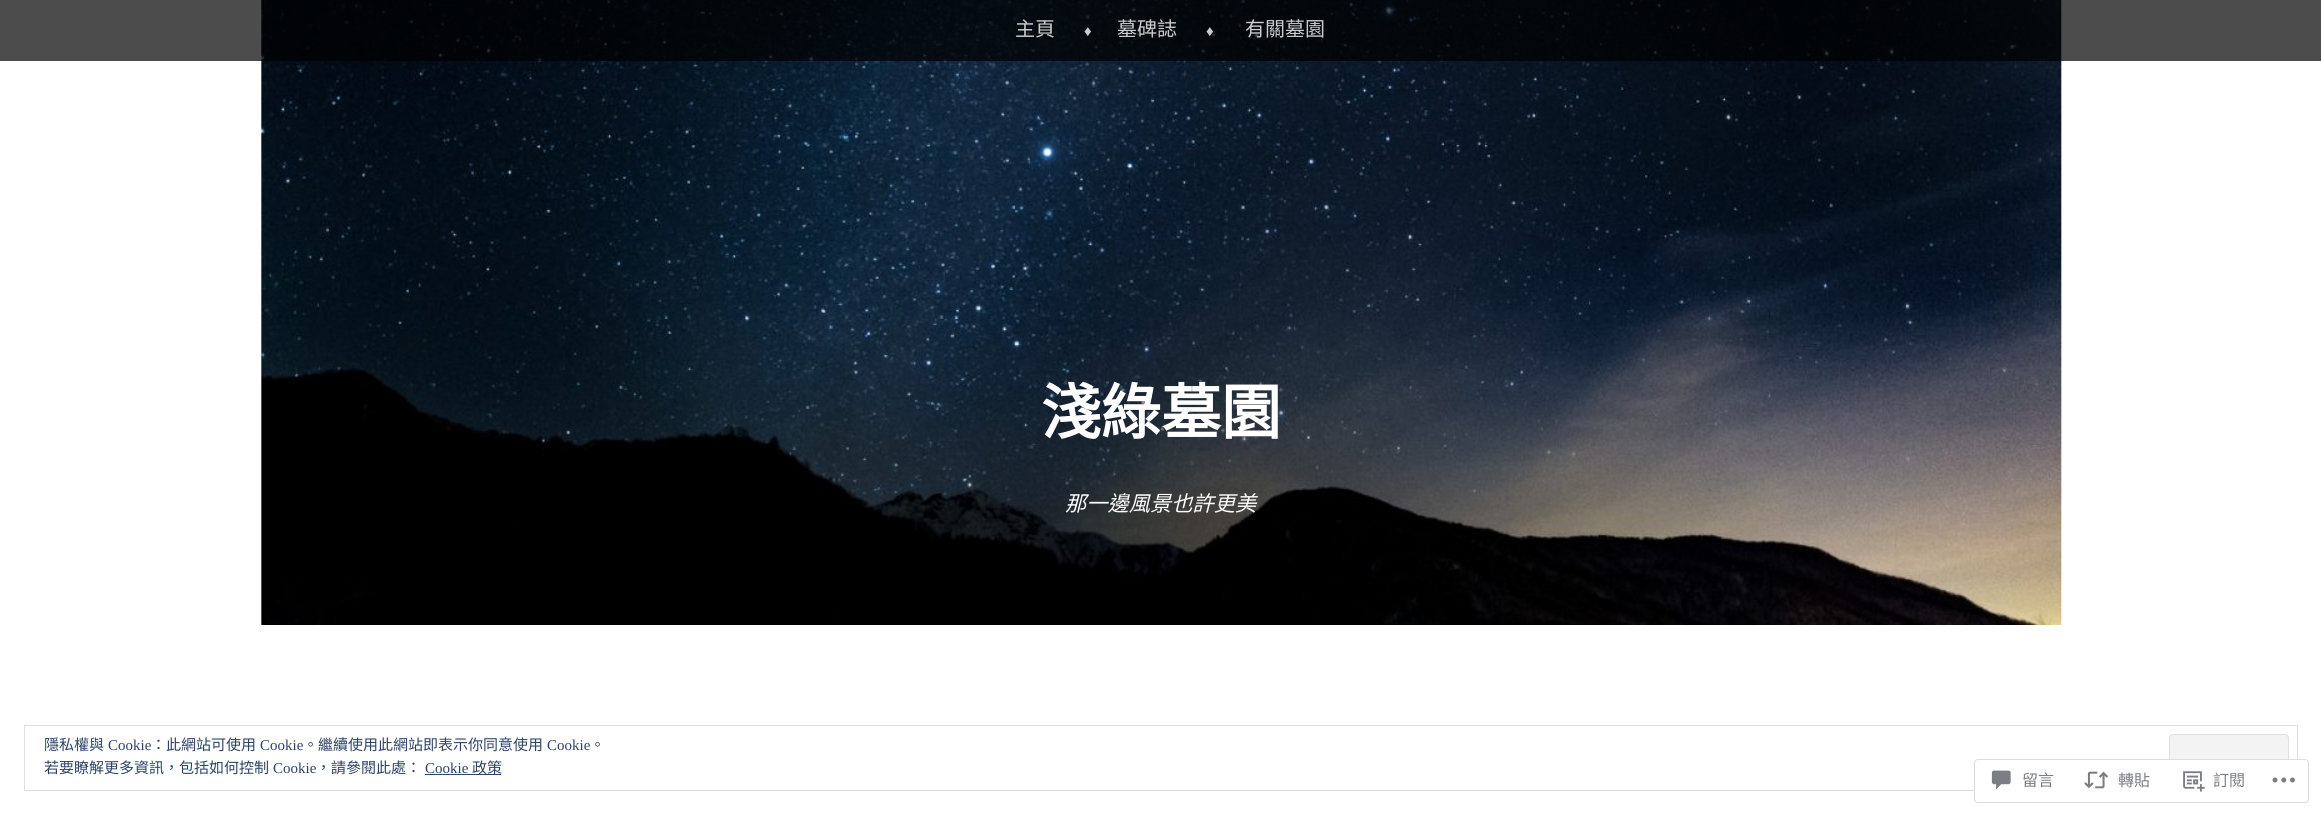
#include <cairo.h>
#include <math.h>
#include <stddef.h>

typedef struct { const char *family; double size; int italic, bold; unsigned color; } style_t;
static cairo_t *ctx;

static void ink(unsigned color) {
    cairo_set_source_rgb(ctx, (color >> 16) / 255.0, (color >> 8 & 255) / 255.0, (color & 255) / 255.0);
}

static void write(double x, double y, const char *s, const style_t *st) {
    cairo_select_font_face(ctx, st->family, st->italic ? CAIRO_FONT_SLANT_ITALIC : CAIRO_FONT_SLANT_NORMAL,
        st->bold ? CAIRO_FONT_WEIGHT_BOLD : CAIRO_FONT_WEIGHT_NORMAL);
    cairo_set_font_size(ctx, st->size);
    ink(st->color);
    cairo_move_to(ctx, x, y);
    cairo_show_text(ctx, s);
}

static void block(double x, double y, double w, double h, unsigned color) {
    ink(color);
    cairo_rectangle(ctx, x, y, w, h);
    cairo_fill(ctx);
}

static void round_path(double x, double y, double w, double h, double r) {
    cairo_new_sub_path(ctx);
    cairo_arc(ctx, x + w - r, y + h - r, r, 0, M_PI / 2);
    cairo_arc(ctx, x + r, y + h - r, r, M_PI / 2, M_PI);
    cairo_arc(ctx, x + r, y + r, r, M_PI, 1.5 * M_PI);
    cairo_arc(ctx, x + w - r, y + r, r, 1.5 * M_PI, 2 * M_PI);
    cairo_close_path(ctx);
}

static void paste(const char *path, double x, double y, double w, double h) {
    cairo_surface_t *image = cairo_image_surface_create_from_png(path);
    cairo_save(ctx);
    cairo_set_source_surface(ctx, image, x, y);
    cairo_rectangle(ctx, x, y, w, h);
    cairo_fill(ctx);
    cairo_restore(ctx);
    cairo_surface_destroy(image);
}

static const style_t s1 = {"Noto Sans CJK TC", 20, 0, 0, 0xcccccc};
static const style_t s2 = {"Liberation Serif", 15, 0, 0, 0xcccccc};
static const style_t s3 = {"Noto Sans CJK TC", 60, 0, 1, 0xffffff};
static const style_t s4 = {"Noto Sans CJK TC", 21.25, 1, 0, 0xffffff};
static const style_t s5 = {"Noto Sans CJK TC", 15, 0, 0, 0x2e4467};
static const style_t s6 = {"Liberation Serif", 15, 0, 0, 0x2e4467};
static const style_t s7 = {"Noto Sans CJK TC", 16, 0, 0, 0x7b7f85};

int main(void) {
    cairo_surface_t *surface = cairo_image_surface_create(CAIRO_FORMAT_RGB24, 2321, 814);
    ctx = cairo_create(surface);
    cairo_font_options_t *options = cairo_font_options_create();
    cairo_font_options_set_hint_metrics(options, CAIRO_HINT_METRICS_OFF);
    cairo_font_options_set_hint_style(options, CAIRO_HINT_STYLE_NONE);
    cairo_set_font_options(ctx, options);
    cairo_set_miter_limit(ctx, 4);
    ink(0xffffff);
    cairo_paint(ctx);
    paste("pic1.png", 261, 0, 1801, 625);
    cairo_set_source_rgba(ctx, 0, 0, 0, 0.7);
    cairo_rectangle(ctx, 0, 0, 2321, 61);
    cairo_fill(ctx);
    write(1015, 36, "主頁", &s1);
    write(1084, 36, "♦", &s2);
    write(1117, 36, "墓碑誌", &s1);
    write(1206, 36, "♦", &s2);
    write(1245, 36, "有關墓園", &s1);
    write(1041, 434, "淺綠墓園", &s3);
    write(1065, 511, "那一邊風景也許更美", &s4);
    cairo_rectangle(ctx, 24.5, 725.5, 2273, 65);
    ink(0xdedede);
    cairo_set_line_width(ctx, 1);
    cairo_stroke(ctx);
    write(44, 750, "隱私權與", &s5);
    write(108, 750, "Cookie", &s6);
    write(151, 750, "：此網站可使用", &s5);
    write(260, 750, "Cookie", &s6);
    write(303, 750, "。繼續使用此網站即表示你同意使用", &s5);
    write(547, 750, "Cookie", &s6);
    write(590, 750, "。", &s5);
    ink(0xf3f3f3);
    round_path(2169.5, 734.5, 119, 48, 3.5);
    cairo_fill_preserve(ctx);
    ink(0xdedede);
    cairo_stroke(ctx);
    write(44, 773, "若要瞭解更多資訊，包括如何控制", &s5);
    write(273, 773, "Cookie", &s6);
    write(316, 773, "，請參閱此處：", &s5);
    write(425, 773, "Cookie", &s6);
    block(425, 774, 76, 1, 0x2e4467);
    write(472, 773, "政策", &s5);
    cairo_set_source_rgba(ctx, 1, 1, 1, 0.98);
    round_path(1974, 759, 335, 44, 4);
    cairo_fill(ctx);
    round_path(1974.5, 759.5, 334, 43, 3.5);
    cairo_set_source_rgba(ctx, 0.863, 0.863, 0.871, 0.98);
    cairo_stroke(ctx);
    paste("pic2.png", 1991, 770, 20, 20);
    write(2022, 786, "留言", &s7);
    paste("pic3.png", 2084, 771, 25, 18);
    write(2118, 786, "轉貼", &s7);
    paste("pic4.png", 2183, 771, 22, 21);
    write(2213, 786, "訂閱", &s7);
    paste("pic5.png", 2272, 777, 23, 6);
    cairo_surface_write_to_png(surface, "screenshot.png");
    cairo_font_options_destroy(options);
    cairo_destroy(ctx);
    cairo_surface_destroy(surface);
    return 0;
}
